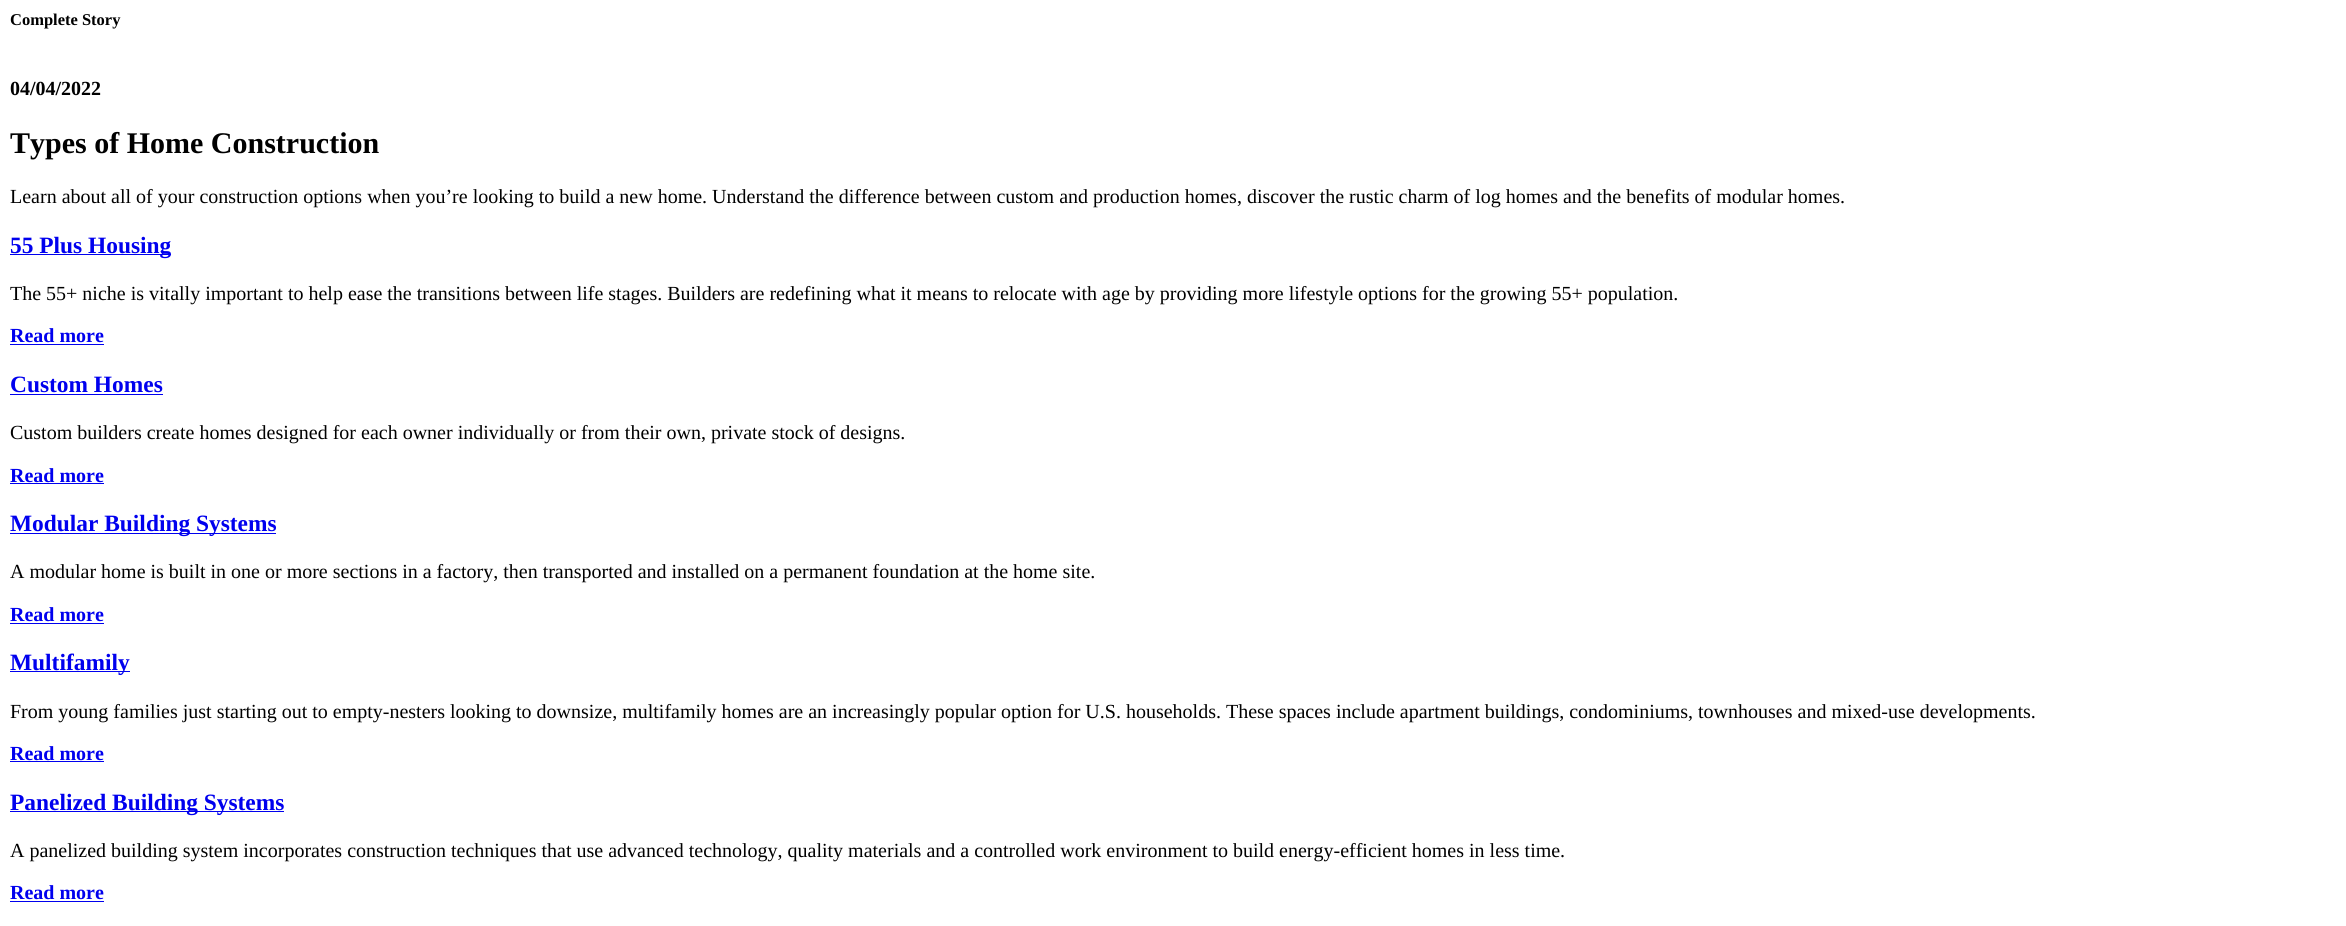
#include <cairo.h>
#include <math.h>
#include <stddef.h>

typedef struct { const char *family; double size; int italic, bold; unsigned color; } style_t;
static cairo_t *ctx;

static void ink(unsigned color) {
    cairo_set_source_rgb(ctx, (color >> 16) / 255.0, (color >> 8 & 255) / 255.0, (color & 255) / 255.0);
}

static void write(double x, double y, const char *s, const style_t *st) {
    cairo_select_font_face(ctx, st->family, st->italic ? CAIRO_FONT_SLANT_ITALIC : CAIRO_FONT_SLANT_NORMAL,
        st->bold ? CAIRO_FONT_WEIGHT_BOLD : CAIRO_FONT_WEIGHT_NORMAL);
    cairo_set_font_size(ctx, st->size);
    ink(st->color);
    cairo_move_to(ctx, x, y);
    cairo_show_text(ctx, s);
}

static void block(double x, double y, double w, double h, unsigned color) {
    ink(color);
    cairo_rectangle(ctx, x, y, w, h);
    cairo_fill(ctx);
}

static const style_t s1 = {"Liberation Serif", 16.5, 0, 1, 0x000000};
static const style_t s2 = {"Liberation Serif", 20, 0, 1, 0x000000};
static const style_t s3 = {"Liberation Serif", 30, 0, 1, 0x000000};
static const style_t s4 = {"Liberation Serif", 20, 0, 0, 0x000000};
static const style_t s5 = {"Liberation Serif", 23.4, 0, 1, 0x0000ee};
static const style_t s6 = {"Liberation Serif", 20, 0, 1, 0x0000ee};

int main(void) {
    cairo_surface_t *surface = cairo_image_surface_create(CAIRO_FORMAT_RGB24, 2346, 926);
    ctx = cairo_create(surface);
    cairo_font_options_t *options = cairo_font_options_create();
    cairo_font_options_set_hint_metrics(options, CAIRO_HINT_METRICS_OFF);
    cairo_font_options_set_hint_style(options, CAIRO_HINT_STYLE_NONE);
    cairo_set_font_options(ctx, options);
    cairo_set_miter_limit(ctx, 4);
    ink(0xffffff);
    cairo_paint(ctx);
    write(10, 25, "Complete Story", &s1);
    write(10, 95, "04/04/2022", &s2);
    write(10, 153, "Types of Home Construction", &s3);
    write(10, 203, "Learn about all of your construction options when you’re looking to build a new home. Understand the difference between custom and production homes, discover the rustic charm of log homes and the benefits of modular homes.", &s4);
    block(10, 254, 161, 1, 0x0000ee);
    write(10, 253, "55 Plus Housing", &s5);
    write(10, 300, "The 55+ niche is vitally important to help ease the transitions between life stages. Builders are redefining what it means to relocate with age by providing more lifestyle options for the growing 55+ population.", &s4);
    write(10, 342, "Read more", &s6);
    block(10, 344, 94, 1, 0x0000ee);
    write(10, 392, "Custom Homes", &s5);
    block(10, 394, 153, 1, 0x0000ee);
    write(10, 439, "Custom builders create homes designed for each owner individually or from their own, private stock of designs.", &s4);
    write(10, 482, "Read more", &s6);
    block(10, 483, 94, 1, 0x0000ee);
    block(10, 533, 266, 1, 0x0000ee);
    write(10, 531, "Modular Building Systems", &s5);
    write(10, 578, "A modular home is built in one or more sections in a factory, then transported and installed on a permanent foundation at the home site.", &s4);
    write(10, 621, "Read more", &s6);
    block(10, 623, 94, 1, 0x0000ee);
    block(10, 671, 120, 1, 0x0000ee);
    write(10, 670, "Multifamily", &s5);
    write(10, 718, "From young families just starting out to empty-nesters looking to downsize, multifamily homes are an increasingly popular option for U.S. households. These spaces include apartment buildings, condominiums, townhouses and mixed-use developments.", &s4);
    write(10, 760, "Read more", &s6);
    block(10, 761, 94, 1, 0x0000ee);
    block(10, 811, 274, 1, 0x0000ee);
    write(10, 810, "Panelized Building Systems", &s5);
    write(10, 857, "A panelized building system incorporates construction techniques that use advanced technology, quality materials and a controlled work environment to build energy-efficient homes in less time.", &s4);
    write(10, 899, "Read more", &s6);
    block(10, 901, 94, 1, 0x0000ee);
    cairo_surface_write_to_png(surface, "screenshot.png");
    cairo_font_options_destroy(options);
    cairo_destroy(ctx);
    cairo_surface_destroy(surface);
    return 0;
}
